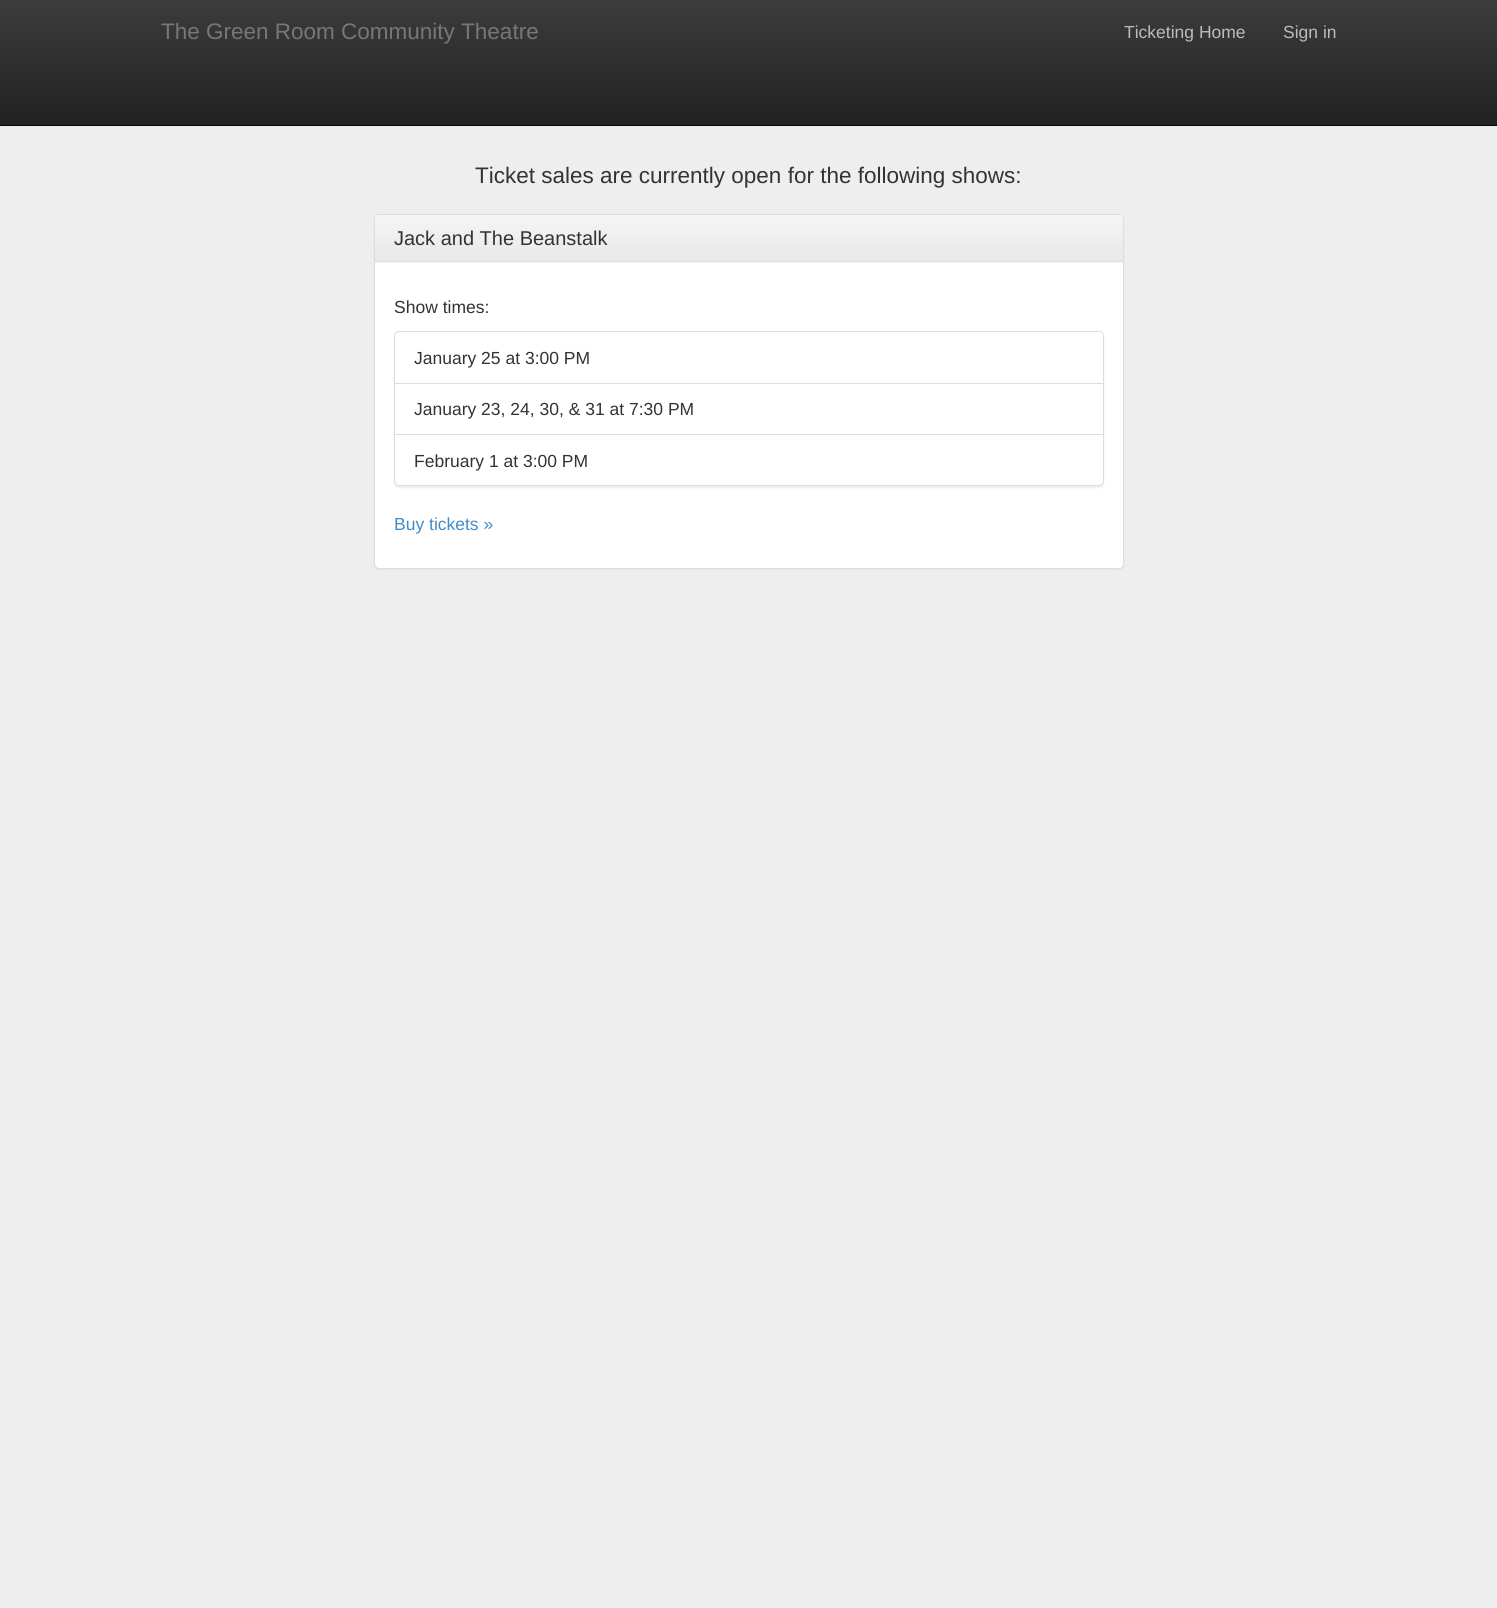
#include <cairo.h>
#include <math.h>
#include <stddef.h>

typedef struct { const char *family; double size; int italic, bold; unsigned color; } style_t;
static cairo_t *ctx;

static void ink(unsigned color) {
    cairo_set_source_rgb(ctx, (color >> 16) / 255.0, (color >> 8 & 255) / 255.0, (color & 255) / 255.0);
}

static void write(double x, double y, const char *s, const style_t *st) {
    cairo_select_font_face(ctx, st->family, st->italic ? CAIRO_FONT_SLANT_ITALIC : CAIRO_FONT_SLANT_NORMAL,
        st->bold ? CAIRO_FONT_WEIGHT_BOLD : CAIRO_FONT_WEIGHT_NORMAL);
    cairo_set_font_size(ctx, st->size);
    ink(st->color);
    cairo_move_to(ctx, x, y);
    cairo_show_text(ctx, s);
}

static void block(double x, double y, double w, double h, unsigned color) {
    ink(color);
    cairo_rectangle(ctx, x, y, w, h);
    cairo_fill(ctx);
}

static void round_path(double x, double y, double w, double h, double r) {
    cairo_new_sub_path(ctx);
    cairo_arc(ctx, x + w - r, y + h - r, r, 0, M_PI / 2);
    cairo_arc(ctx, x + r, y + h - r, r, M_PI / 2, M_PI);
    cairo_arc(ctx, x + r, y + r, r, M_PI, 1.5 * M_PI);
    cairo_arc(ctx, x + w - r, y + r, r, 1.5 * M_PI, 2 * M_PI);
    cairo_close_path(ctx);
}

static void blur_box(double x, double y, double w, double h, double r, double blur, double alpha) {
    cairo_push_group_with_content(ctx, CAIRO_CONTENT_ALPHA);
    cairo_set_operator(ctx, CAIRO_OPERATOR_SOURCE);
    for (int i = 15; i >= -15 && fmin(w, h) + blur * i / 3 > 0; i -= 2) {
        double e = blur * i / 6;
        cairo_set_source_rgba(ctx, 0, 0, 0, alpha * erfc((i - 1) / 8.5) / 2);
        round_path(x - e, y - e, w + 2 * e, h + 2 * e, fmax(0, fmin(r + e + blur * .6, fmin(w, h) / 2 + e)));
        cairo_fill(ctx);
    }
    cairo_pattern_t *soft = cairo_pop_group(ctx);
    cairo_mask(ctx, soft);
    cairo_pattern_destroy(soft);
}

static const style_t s1 = {"Liberation Sans", 22.5, 0, 0, 0x777777};
static const style_t s2 = {"Liberation Sans", 17.5, 0, 0, 0xbbbbbb};
static const style_t s3 = {"Liberation Sans", 22.5, 0, 0, 0x333333};
static const style_t s4 = {"Liberation Sans", 20, 0, 0, 0x333333};
static const style_t s5 = {"Liberation Sans", 17.5, 0, 0, 0x333333};
static const style_t s6 = {"Liberation Sans", 17.5, 0, 0, 0x428bca};

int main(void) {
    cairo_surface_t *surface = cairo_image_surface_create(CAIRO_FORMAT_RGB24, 1497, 1608);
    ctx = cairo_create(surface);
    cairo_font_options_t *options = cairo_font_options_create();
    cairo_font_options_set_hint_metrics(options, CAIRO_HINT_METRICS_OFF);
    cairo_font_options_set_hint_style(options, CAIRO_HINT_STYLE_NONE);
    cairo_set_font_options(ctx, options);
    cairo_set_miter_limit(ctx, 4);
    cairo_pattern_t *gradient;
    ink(0xeeeeee);
    cairo_paint(ctx);
    gradient = cairo_pattern_create_linear(749, 0, 749, 125);
    cairo_pattern_add_color_stop_rgba(gradient, 0, 0.235, 0.235, 0.235, 1);
    cairo_pattern_add_color_stop_rgba(gradient, 1, 0.133, 0.133, 0.133, 1);
    cairo_set_source(ctx, gradient);
    cairo_pattern_destroy(gradient);
    cairo_rectangle(ctx, 0, 0, 1497, 125);
    cairo_fill(ctx);
    block(0, 125, 1497, 1, 0x080808);
    write(161, 39, "The Green Room Community Theatre", &s1);
    write(1124, 38, "Ticketing Home", &s2);
    write(1283, 38, "Sign in", &s2);
    write(475, 183, "Ticket sales are currently open for the following shows:", &s3);
    ink(0x000000);
    blur_box(374, 215, 750, 355, 5, 1, 0.05);
    ink(0xffffff);
    round_path(374.5, 214.5, 749, 354, 4.5);
    cairo_fill_preserve(ctx);
    ink(0xdddddd);
    cairo_set_line_width(ctx, 1);
    cairo_stroke(ctx);
    ink(0xf5f5f5);
    cairo_new_path(ctx);
    cairo_move_to(ctx, 379, 215);
    cairo_line_to(ctx, 1119, 215);
    cairo_curve_to(ctx, 1121, 215, 1123, 217, 1123, 219);
    cairo_line_to(ctx, 1123, 263);
    cairo_line_to(ctx, 375, 263);
    cairo_line_to(ctx, 375, 219);
    cairo_curve_to(ctx, 375, 217, 377, 215, 379, 215);
    cairo_close_path(ctx);
    cairo_fill(ctx);
    gradient = cairo_pattern_create_linear(749, 215, 749, 261);
    cairo_pattern_add_color_stop_rgba(gradient, 0, 0.961, 0.961, 0.961, 1);
    cairo_pattern_add_color_stop_rgba(gradient, 1, 0.91, 0.91, 0.91, 1);
    cairo_set_source(ctx, gradient);
    cairo_pattern_destroy(gradient);
    cairo_new_path(ctx);
    cairo_move_to(ctx, 379, 215);
    cairo_line_to(ctx, 1119, 215);
    cairo_curve_to(ctx, 1121, 215, 1123, 217, 1123, 219);
    cairo_line_to(ctx, 1123, 261);
    cairo_line_to(ctx, 375, 261);
    cairo_line_to(ctx, 375, 219);
    cairo_curve_to(ctx, 375, 217, 377, 215, 379, 215);
    cairo_close_path(ctx);
    cairo_fill(ctx);
    block(375, 261, 748, 1, 0xdddddd);
    write(394, 245, "Jack and The Beanstalk", &s4);
    write(394, 313, "Show times:", &s5);
    ink(0x000000);
    blur_box(394, 333, 710, 155, 5, 1, 0.07);
    ink(0xffffff);
    cairo_new_path(ctx);
    cairo_move_to(ctx, 399, 331.5);
    cairo_line_to(ctx, 1099, 331.5);
    cairo_curve_to(ctx, 1101.5, 331.5, 1103.5, 333.5, 1103.5, 336);
    cairo_line_to(ctx, 1103.5, 383.5);
    cairo_line_to(ctx, 394.5, 383.5);
    cairo_line_to(ctx, 394.5, 336);
    cairo_curve_to(ctx, 394.5, 333.5, 396.5, 331.5, 399, 331.5);
    cairo_close_path(ctx);
    cairo_fill_preserve(ctx);
    ink(0xdddddd);
    cairo_stroke(ctx);
    write(414, 364, "January 25 at 3:00 PM", &s5);
    ink(0xffffff);
    cairo_rectangle(ctx, 394.5, 383.5, 709, 51);
    cairo_fill_preserve(ctx);
    ink(0xdddddd);
    cairo_stroke(ctx);
    write(414, 415, "January 23, 24, 30, & 31 at 7:30 PM", &s5);
    ink(0xffffff);
    cairo_new_path(ctx);
    cairo_move_to(ctx, 394.5, 434.5);
    cairo_line_to(ctx, 1103.5, 434.5);
    cairo_line_to(ctx, 1103.5, 481);
    cairo_curve_to(ctx, 1103.5, 483.5, 1101.5, 485.5, 1099, 485.5);
    cairo_line_to(ctx, 399, 485.5);
    cairo_curve_to(ctx, 396.5, 485.5, 394.5, 483.5, 394.5, 481);
    cairo_close_path(ctx);
    cairo_fill_preserve(ctx);
    ink(0xdddddd);
    cairo_stroke(ctx);
    write(414, 467, "February 1 at 3:00 PM", &s5);
    write(394, 530, "Buy tickets »", &s6);
    cairo_surface_write_to_png(surface, "screenshot.png");
    cairo_font_options_destroy(options);
    cairo_destroy(ctx);
    cairo_surface_destroy(surface);
    return 0;
}
